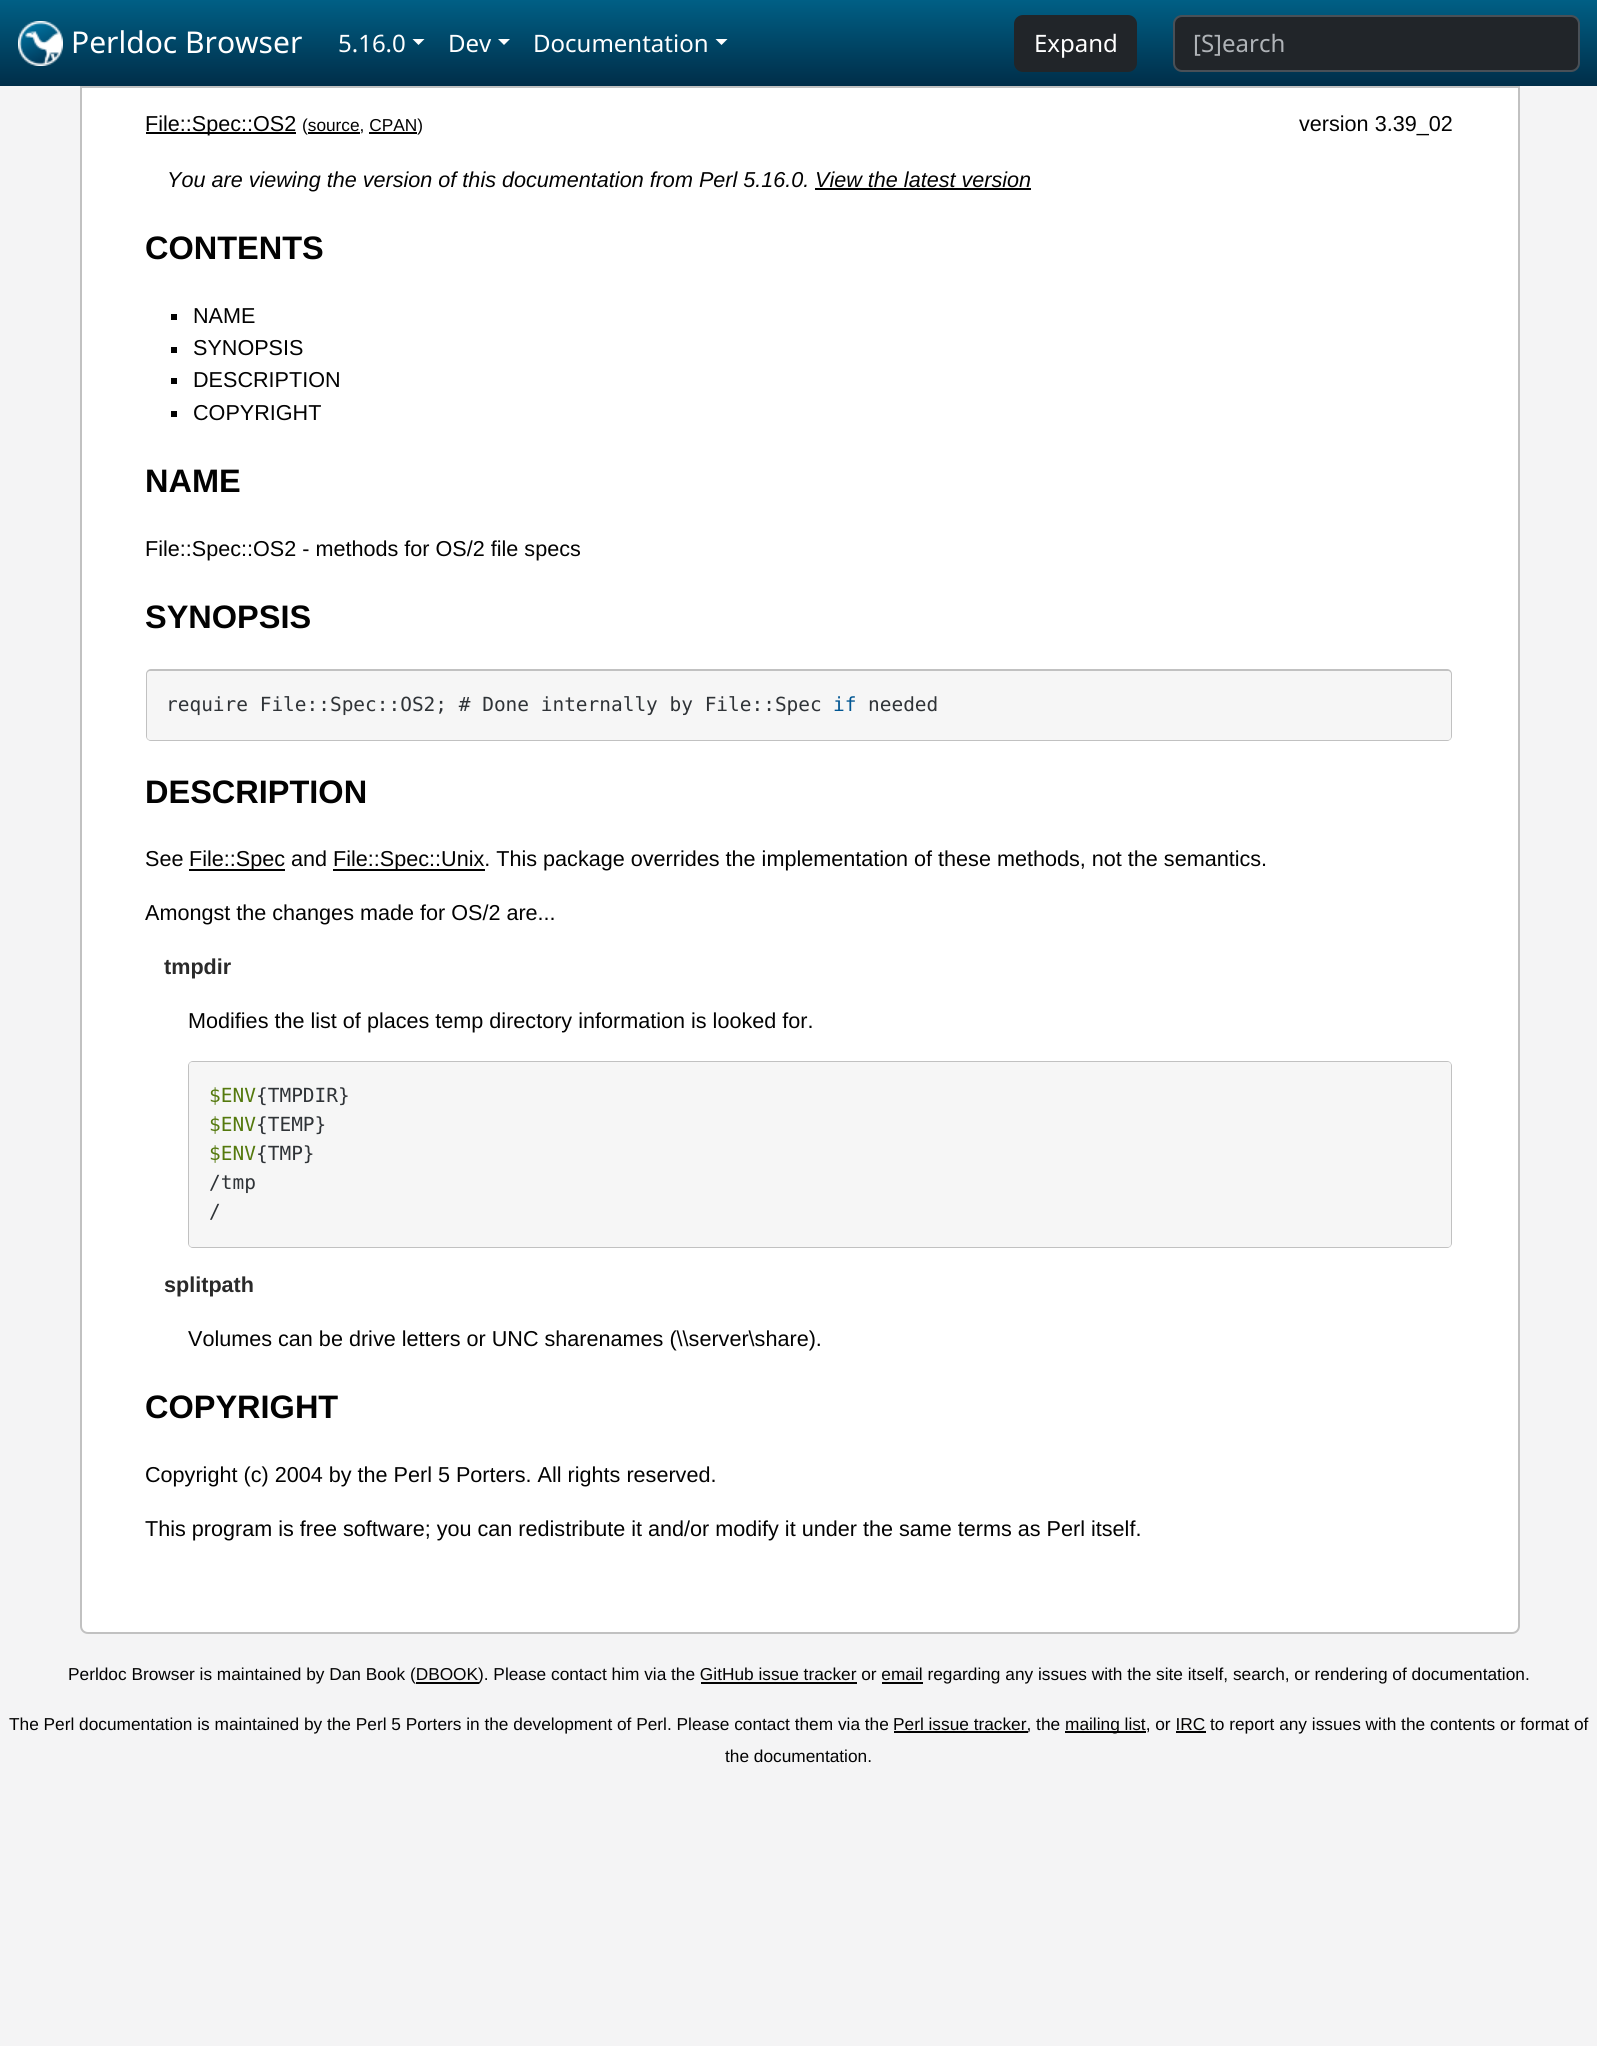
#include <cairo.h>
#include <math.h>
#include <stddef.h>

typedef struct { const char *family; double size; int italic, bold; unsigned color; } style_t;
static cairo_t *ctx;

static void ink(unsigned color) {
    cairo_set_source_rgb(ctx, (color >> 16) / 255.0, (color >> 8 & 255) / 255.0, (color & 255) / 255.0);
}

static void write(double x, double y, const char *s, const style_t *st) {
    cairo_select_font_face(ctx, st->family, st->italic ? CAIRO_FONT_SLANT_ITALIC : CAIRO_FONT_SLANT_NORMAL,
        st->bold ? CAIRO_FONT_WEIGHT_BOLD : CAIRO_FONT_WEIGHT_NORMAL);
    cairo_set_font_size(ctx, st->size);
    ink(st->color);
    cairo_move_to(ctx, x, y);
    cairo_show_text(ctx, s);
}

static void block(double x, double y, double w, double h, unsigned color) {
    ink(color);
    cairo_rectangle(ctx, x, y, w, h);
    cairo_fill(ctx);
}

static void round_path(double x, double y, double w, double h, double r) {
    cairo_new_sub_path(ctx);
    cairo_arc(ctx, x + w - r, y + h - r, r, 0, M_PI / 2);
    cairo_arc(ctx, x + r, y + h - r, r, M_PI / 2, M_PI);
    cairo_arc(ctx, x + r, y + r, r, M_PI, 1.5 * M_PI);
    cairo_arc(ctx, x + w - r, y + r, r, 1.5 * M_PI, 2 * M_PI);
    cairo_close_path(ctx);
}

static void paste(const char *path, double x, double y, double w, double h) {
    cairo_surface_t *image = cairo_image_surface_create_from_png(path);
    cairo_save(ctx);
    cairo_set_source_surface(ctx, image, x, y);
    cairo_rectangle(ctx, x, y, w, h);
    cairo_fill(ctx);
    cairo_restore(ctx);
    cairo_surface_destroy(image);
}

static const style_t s1 = {"Noto Sans", 30, 0, 0, 0xffffff};
static const style_t s2 = {"Noto Sans", 24, 0, 0, 0xffffff};
static const style_t s3 = {"Noto Sans", 24, 0, 0, 0xafb3b7};
static const style_t s4 = {"Liberation Sans", 21.6, 0, 0, 0x020202};
static const style_t s5 = {"Liberation Sans", 17.28, 0, 0, 0x020202};
static const style_t s6 = {"Liberation Sans", 21.6, 1, 0, 0x020202};
static const style_t s7 = {"Liberation Sans", 32.5, 0, 1, 0x020202};
static const style_t s8 = {"DejaVu Sans Mono", 19.45, 0, 0, 0x2f3337};
static const style_t s9 = {"DejaVu Sans Mono", 19.45, 0, 0, 0x015692};
static const style_t s10 = {"Liberation Sans", 21.6, 0, 1, 0x2a2a2a};
static const style_t s11 = {"DejaVu Sans Mono", 19.45, 0, 0, 0x54790d};

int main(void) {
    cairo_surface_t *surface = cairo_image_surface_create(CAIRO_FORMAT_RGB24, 1597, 2046);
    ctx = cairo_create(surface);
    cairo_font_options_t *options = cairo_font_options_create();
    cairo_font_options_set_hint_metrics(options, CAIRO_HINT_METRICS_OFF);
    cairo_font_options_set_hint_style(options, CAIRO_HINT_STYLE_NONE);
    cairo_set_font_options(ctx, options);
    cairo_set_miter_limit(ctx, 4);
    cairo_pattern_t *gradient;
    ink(0xf4f4f5);
    cairo_paint(ctx);
    gradient = cairo_pattern_create_linear(799, 0, 799, 86);
    cairo_pattern_add_color_stop_rgba(gradient, 0, 0, 0.373, 0.522, 1);
    cairo_pattern_add_color_stop_rgba(gradient, 1, 0, 0.18, 0.286, 1);
    cairo_set_source(ctx, gradient);
    cairo_pattern_destroy(gradient);
    cairo_rectangle(ctx, 0, 0, 1597, 86);
    cairo_fill(ctx);
    paste("pic1.png", 18, 21, 45, 45);
    write(71, 53, "Perldoc Browser", &s1);
    write(338, 52, "5.16.0", &s2);
    cairo_new_path(ctx);
    cairo_move_to(ctx, 412.5, 39);
    cairo_line_to(ctx, 424.5, 39);
    cairo_line_to(ctx, 418.5, 45);
    cairo_close_path(ctx);
    cairo_fill(ctx);
    write(448, 52, "Dev", &s2);
    cairo_new_path(ctx);
    cairo_move_to(ctx, 498, 39);
    cairo_line_to(ctx, 510, 39);
    cairo_line_to(ctx, 504, 45);
    cairo_close_path(ctx);
    cairo_fill(ctx);
    write(533, 52, "Documentation", &s2);
    cairo_new_path(ctx);
    cairo_move_to(ctx, 715.5, 39);
    cairo_line_to(ctx, 727.5, 39);
    cairo_line_to(ctx, 721.5, 45);
    cairo_close_path(ctx);
    cairo_fill(ctx);
    ink(0x212529);
    round_path(1015, 16, 121, 55, 8);
    cairo_fill_preserve(ctx);
    cairo_stroke(ctx);
    write(1034, 52, "Expand", &s2);
    ink(0x212529);
    round_path(1174, 16, 405, 55, 8);
    cairo_fill_preserve(ctx);
    ink(0x495057);
    cairo_stroke(ctx);
    write(1193, 52, "[S]earch", &s3);
    ink(0xffffff);
    cairo_new_path(ctx);
    cairo_move_to(ctx, 81, 87);
    cairo_line_to(ctx, 1519, 87);
    cairo_line_to(ctx, 1519, 1626);
    cairo_curve_to(ctx, 1519, 1630, 1516, 1633, 1512, 1633);
    cairo_line_to(ctx, 88, 1633);
    cairo_curve_to(ctx, 84, 1633, 81, 1630, 81, 1626);
    cairo_close_path(ctx);
    cairo_fill_preserve(ctx);
    ink(0xc1c1c1);
    cairo_stroke(ctx);
    block(146, 132, 150, 2, 0x020202);
    write(145, 131, "File::Spec::OS2", &s4);
    write(302, 131, "(source, CPAN)", &s5);
    block(308, 132, 52, 2, 0x020202);
    block(369, 132, 48, 2, 0x020202);
    write(1299, 131, "version 3.39_02", &s4);
    write(167, 187, "You are viewing the version of this documentation from Perl 5.16.0.", &s6);
    write(815, 187, "View the latest version", &s6);
    block(815, 188, 216, 2, 0x020202);
    write(145, 259, "CONTENTS", &s7);
    block(171, 314, 6, 6, 0x020202);
    write(193, 323, "NAME", &s4);
    block(171, 347, 6, 6, 0x020202);
    write(193, 355, "SYNOPSIS", &s4);
    block(171, 378, 6, 6, 0x020202);
    write(193, 387, "DESCRIPTION", &s4);
    block(171, 411, 6, 6, 0x020202);
    write(193, 420, "COPYRIGHT", &s4);
    write(145, 492, "NAME", &s7);
    write(145, 556, "File::Spec::OS2 - methods for OS/2 file specs", &s4);
    write(145, 628, "SYNOPSIS", &s7);
    round_path(147, 670, 1304, 70, 4);
    ink(0xc1c1c1);
    cairo_stroke(ctx);
    ink(0xf6f6f6);
    round_path(147, 671, 1304, 69, 3);
    cairo_fill(ctx);
    write(166, 711, "require File::Spec::OS2; # Done internally by File::Spec", &s8);
    write(833, 711, "if", &s9);
    write(868, 711, "needed", &s8);
    write(145, 803, "DESCRIPTION", &s7);
    write(145, 866, "See", &s4);
    block(189, 869, 96, 2, 0x020202);
    write(189, 866, "File::Spec and", &s4);
    block(333, 869, 152, 2, 0x020202);
    write(333, 866, "File::Spec::Unix. This package overrides the implementation of these methods, not the semantics.", &s4);
    write(145, 920, "Amongst the changes made for OS/2 are...", &s4);
    write(164, 974, "tmpdir", &s10);
    write(188, 1028, "Modifies the list of places temp directory information is looked for.", &s4);
    round_path(189, 1062, 1262, 185, 4);
    ink(0xc1c1c1);
    cairo_stroke(ctx);
    ink(0xf6f6f6);
    round_path(189, 1062, 1262, 185, 3);
    cairo_fill(ctx);
    write(209, 1102, "$ENV", &s11);
    write(256, 1102, "{TMPDIR}", &s8);
    write(209, 1131, "$ENV", &s11);
    write(256, 1131, "{TEMP}", &s8);
    write(209, 1160, "$ENV", &s11);
    write(256, 1160, "{TMP}", &s8);
    write(209, 1189, "/tmp", &s8);
    write(209, 1218, "/", &s8);
    write(164, 1292, "splitpath", &s10);
    write(188, 1346, "Volumes can be drive letters or UNC sharenames (\\\\server\\share).", &s4);
    write(145, 1418, "COPYRIGHT", &s7);
    write(145, 1482, "Copyright (c) 2004 by the Perl 5 Porters. All rights reserved.", &s4);
    write(145, 1536, "This program is free software; you can redistribute it and/or modify it under the same terms as Perl itself.", &s4);
    write(68, 1680, "Perldoc Browser is maintained by Dan Book (DBOOK", &s5);
    block(416, 1682, 63, 2, 0x020202);
    write(478, 1680, "). Please contact him via the GitHub issue tracker or email regarding any issues with the site itself, search, or rendering of documentation.", &s5);
    block(701, 1682, 156, 2, 0x020202);
    block(882, 1682, 41, 2, 0x020202);
    write(9, 1730, "The Perl documentation is maintained by the Perl 5 Porters in the development of Perl. Please contact them via the", &s5);
    block(894, 1731, 134, 2, 0x020202);
    write(893, 1730, "Perl issue tracker, the", &s5);
    block(1065, 1731, 81, 2, 0x020202);
    write(1065, 1730, "mailing list, or IRC to report any issues with the contents or format of", &s5);
    block(1176, 1731, 30, 2, 0x020202);
    write(725, 1762, "the documentation.", &s5);
    cairo_surface_write_to_png(surface, "screenshot.png");
    cairo_font_options_destroy(options);
    cairo_destroy(ctx);
    cairo_surface_destroy(surface);
    return 0;
}
